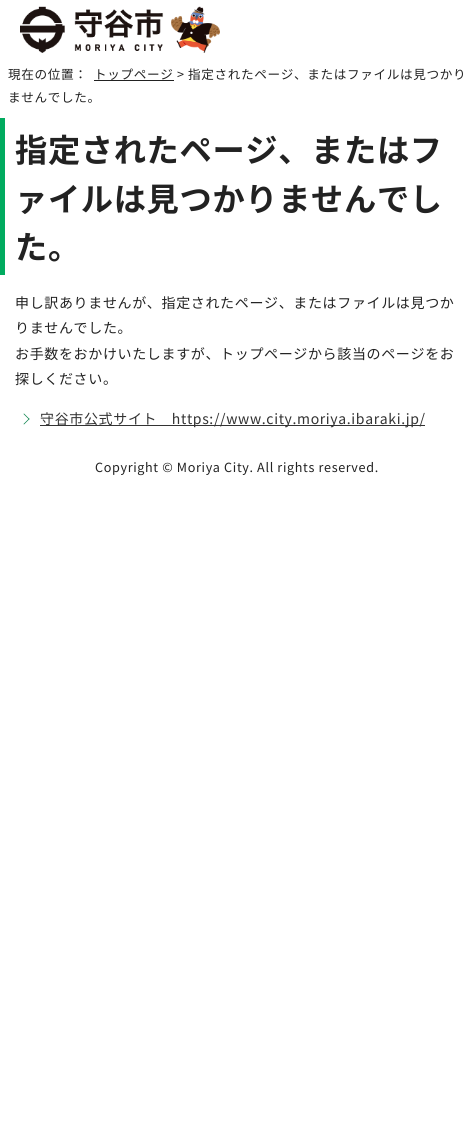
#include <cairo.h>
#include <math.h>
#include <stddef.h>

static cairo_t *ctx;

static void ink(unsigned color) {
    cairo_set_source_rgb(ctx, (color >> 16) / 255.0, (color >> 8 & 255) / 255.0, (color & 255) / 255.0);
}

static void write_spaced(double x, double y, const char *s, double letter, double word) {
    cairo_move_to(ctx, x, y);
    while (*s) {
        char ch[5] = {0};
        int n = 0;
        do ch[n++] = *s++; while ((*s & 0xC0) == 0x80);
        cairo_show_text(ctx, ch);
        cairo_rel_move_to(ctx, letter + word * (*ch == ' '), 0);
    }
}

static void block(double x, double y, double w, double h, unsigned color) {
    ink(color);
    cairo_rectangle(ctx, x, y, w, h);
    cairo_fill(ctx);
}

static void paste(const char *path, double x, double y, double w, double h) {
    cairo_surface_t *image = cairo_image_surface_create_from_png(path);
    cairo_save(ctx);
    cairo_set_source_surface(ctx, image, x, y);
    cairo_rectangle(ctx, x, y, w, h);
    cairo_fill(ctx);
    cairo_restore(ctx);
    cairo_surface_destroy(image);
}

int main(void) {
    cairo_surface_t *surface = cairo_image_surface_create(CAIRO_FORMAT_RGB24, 474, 1146);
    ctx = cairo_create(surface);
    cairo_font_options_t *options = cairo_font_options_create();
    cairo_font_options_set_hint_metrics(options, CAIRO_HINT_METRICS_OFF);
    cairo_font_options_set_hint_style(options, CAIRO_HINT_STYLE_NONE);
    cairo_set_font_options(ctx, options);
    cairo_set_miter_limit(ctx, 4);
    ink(0xffffff);
    cairo_paint(ctx);
    paste("pic1.png", 20, 6, 200, 47);
    cairo_select_font_face(ctx, "Noto Sans JP", CAIRO_FONT_SLANT_NORMAL, CAIRO_FONT_WEIGHT_NORMAL);
    cairo_set_font_size(ctx, 12.6);
    ink(0x222222);
    write_spaced(8, 79, "現在の位置：", 0.65, 0);
    block(94, 80, 80, 1, 0x222222);
    write_spaced(94, 79, "トップページ > 指定されたページ、またはファイルは見つかり", 0.65, 0);
    write_spaced(8, 102, "ませんでした。", 0.65, 0);
    block(0, 118, 5, 157, 0x01ab5f);
    cairo_select_font_face(ctx, "Noto Sans JP", CAIRO_FONT_SLANT_NORMAL, CAIRO_FONT_WEIGHT_BOLD);
    cairo_set_font_size(ctx, 32.25);
    ink(0x222222);
    write_spaced(15, 162, "指定されたページ、またはフ", 0.65, 0);
    write_spaced(15, 211, "ァイルは見つかりませんでし", 0.65, 0);
    write_spaced(15, 259, "た。", 0.65, 0);
    cairo_select_font_face(ctx, "Noto Sans JP", CAIRO_FONT_SLANT_NORMAL, CAIRO_FONT_WEIGHT_NORMAL);
    cairo_set_font_size(ctx, 14);
    write_spaced(15, 308, "申し訳ありませんが、指定されたページ、またはファイルは見つか", 0.65, 0);
    write_spaced(15, 333, "りませんでした。", 0.65, 0);
    write_spaced(15, 359, "お手数をおかけいたしますが、トップページから該当のページをお", 0.65, 0);
    write_spaced(15, 384, "探しください。", 0.65, 0);
    ink(0x08814a);
    cairo_new_path(ctx);
    cairo_move_to(ctx, 24, 413.5);
    cairo_line_to(ctx, 29.5, 419);
    cairo_line_to(ctx, 29, 419.5);
    cairo_line_to(ctx, 23.5, 414);
    cairo_close_path(ctx);
    cairo_fill(ctx);
    cairo_new_path(ctx);
    cairo_move_to(ctx, 29, 418.5);
    cairo_line_to(ctx, 29.5, 419);
    cairo_line_to(ctx, 24, 424.5);
    cairo_line_to(ctx, 23.5, 424);
    cairo_close_path(ctx);
    cairo_fill(ctx);
    block(40, 425, 385, 1, 0x333333);
    write_spaced(40, 424, "守谷市公式サイト　https://www.city.moriya.ibaraki.jp/", 0.65, 0);
    cairo_set_font_size(ctx, 12.6);
    ink(0x222222);
    write_spaced(95, 472, "Copyright © Moriya City. All rights reserved.", 0.65, 0);
    cairo_surface_write_to_png(surface, "screenshot.png");
    cairo_font_options_destroy(options);
    cairo_destroy(ctx);
    cairo_surface_destroy(surface);
    return 0;
}
